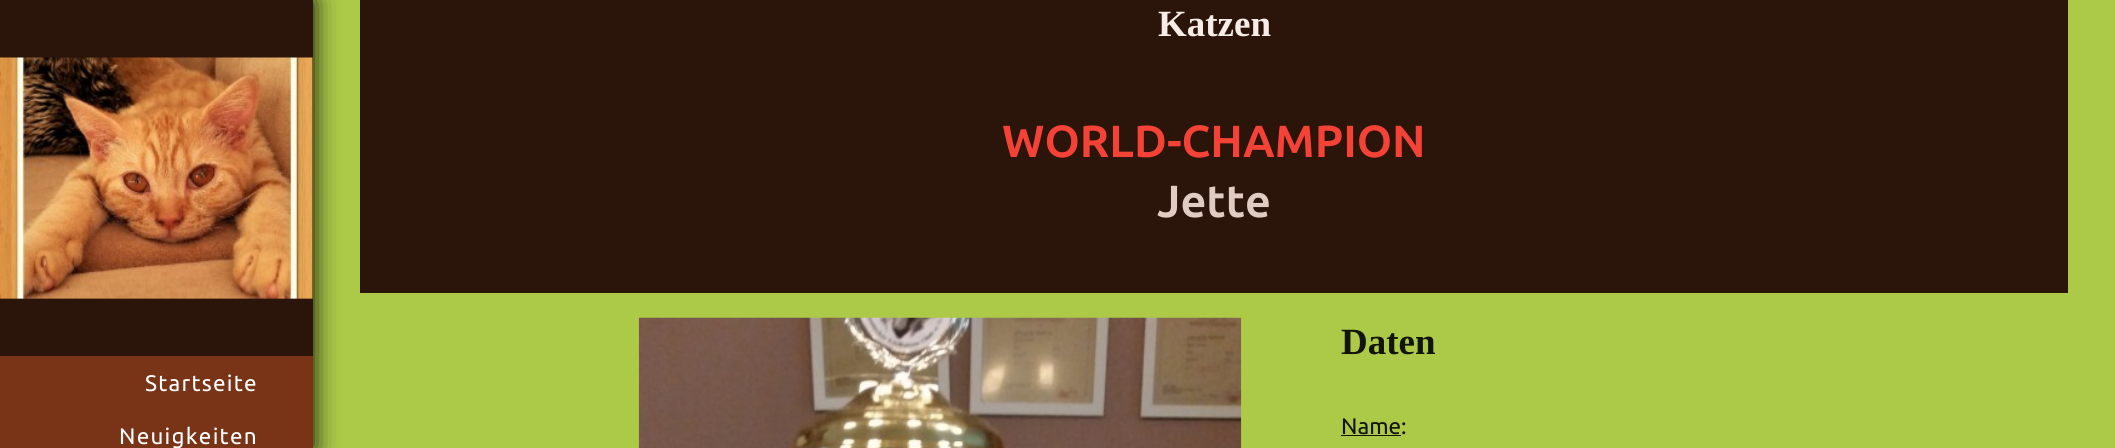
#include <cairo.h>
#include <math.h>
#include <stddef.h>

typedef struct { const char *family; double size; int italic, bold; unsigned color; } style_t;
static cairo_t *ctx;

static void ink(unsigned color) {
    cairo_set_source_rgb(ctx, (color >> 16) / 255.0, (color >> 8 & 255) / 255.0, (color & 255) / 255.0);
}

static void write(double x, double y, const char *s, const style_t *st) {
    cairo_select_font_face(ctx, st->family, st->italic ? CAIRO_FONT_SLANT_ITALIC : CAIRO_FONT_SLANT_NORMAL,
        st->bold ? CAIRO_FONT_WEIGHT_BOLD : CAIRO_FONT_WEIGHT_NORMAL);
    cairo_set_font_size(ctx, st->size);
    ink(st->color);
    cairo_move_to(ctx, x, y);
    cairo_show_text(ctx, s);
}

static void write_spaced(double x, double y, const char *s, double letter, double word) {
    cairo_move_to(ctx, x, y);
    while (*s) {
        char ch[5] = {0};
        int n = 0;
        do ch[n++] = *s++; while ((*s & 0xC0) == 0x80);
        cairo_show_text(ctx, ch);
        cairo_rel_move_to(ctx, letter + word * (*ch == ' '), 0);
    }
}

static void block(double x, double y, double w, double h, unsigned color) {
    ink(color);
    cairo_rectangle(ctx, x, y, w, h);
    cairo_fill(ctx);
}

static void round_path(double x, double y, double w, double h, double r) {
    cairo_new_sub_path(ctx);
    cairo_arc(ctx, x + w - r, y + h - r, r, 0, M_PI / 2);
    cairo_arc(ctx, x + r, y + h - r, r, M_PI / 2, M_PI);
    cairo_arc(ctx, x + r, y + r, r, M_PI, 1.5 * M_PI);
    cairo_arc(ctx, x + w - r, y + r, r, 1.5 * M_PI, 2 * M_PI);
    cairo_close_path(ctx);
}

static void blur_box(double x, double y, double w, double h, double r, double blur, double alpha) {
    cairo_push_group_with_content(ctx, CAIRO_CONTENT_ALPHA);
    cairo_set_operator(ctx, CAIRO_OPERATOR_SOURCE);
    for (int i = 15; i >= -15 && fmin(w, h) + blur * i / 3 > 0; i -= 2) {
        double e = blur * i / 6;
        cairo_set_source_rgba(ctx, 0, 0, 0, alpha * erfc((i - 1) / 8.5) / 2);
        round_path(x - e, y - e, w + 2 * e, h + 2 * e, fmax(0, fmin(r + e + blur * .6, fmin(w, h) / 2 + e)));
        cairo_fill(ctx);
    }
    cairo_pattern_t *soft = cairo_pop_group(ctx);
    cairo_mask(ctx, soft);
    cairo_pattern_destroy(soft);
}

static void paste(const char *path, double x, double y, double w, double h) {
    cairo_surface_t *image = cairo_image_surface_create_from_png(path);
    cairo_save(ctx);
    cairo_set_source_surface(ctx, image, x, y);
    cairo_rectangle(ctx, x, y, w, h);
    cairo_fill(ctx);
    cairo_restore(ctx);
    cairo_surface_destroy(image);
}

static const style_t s1 = {"Liberation Serif", 37, 0, 1, 0xf7ede6};
static const style_t s2 = {"Ubuntu", 45, 0, 1, 0xf44336};
static const style_t s3 = {"Ubuntu", 45, 0, 1, 0xe1ccc3};
static const style_t s4 = {"Liberation Serif", 37, 0, 1, 0x111407};
static const style_t s5 = {"Ubuntu", 22.5, 0, 0, 0x111407};

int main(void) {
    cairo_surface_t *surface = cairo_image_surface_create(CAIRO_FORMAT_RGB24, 2115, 448);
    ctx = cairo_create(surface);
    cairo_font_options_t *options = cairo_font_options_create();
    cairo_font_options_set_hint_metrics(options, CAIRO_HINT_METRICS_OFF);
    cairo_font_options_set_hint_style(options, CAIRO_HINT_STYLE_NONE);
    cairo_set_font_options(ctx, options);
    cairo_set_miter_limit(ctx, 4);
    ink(0xacca48);
    cairo_paint(ctx);
    ink(0x000000);
    blur_box(0, 0, 313, 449, 0, 12.5, 1);
    block(360, 0, 1708, 293, 0x2b140a);
    write(1158, 36, "Katzen", &s1);
    write(1002, 157, "WORLD-CHAMPION", &s2);
    write(1157, 217, "Jette", &s3);
    paste("pic1.png", 638, 317, 604, 131);
    write(1341, 354, "Daten", &s4);
    write(1341, 434, "Name:", &s5);
    block(1341, 435, 60, 1, 0x111407);
    block(0, 0, 313, 356, 0x2b140a);
    paste("pic2.png", 0, 57, 313, 242);
    block(0, 356, 313, 92, 0x793417);
    ink(0xffffff);
    write_spaced(145, 391, "Startseite", 1.25, 0);
    write_spaced(119, 444, "Neuigkeiten", 1.25, 0);
    cairo_surface_write_to_png(surface, "screenshot.png");
    cairo_font_options_destroy(options);
    cairo_destroy(ctx);
    cairo_surface_destroy(surface);
    return 0;
}
